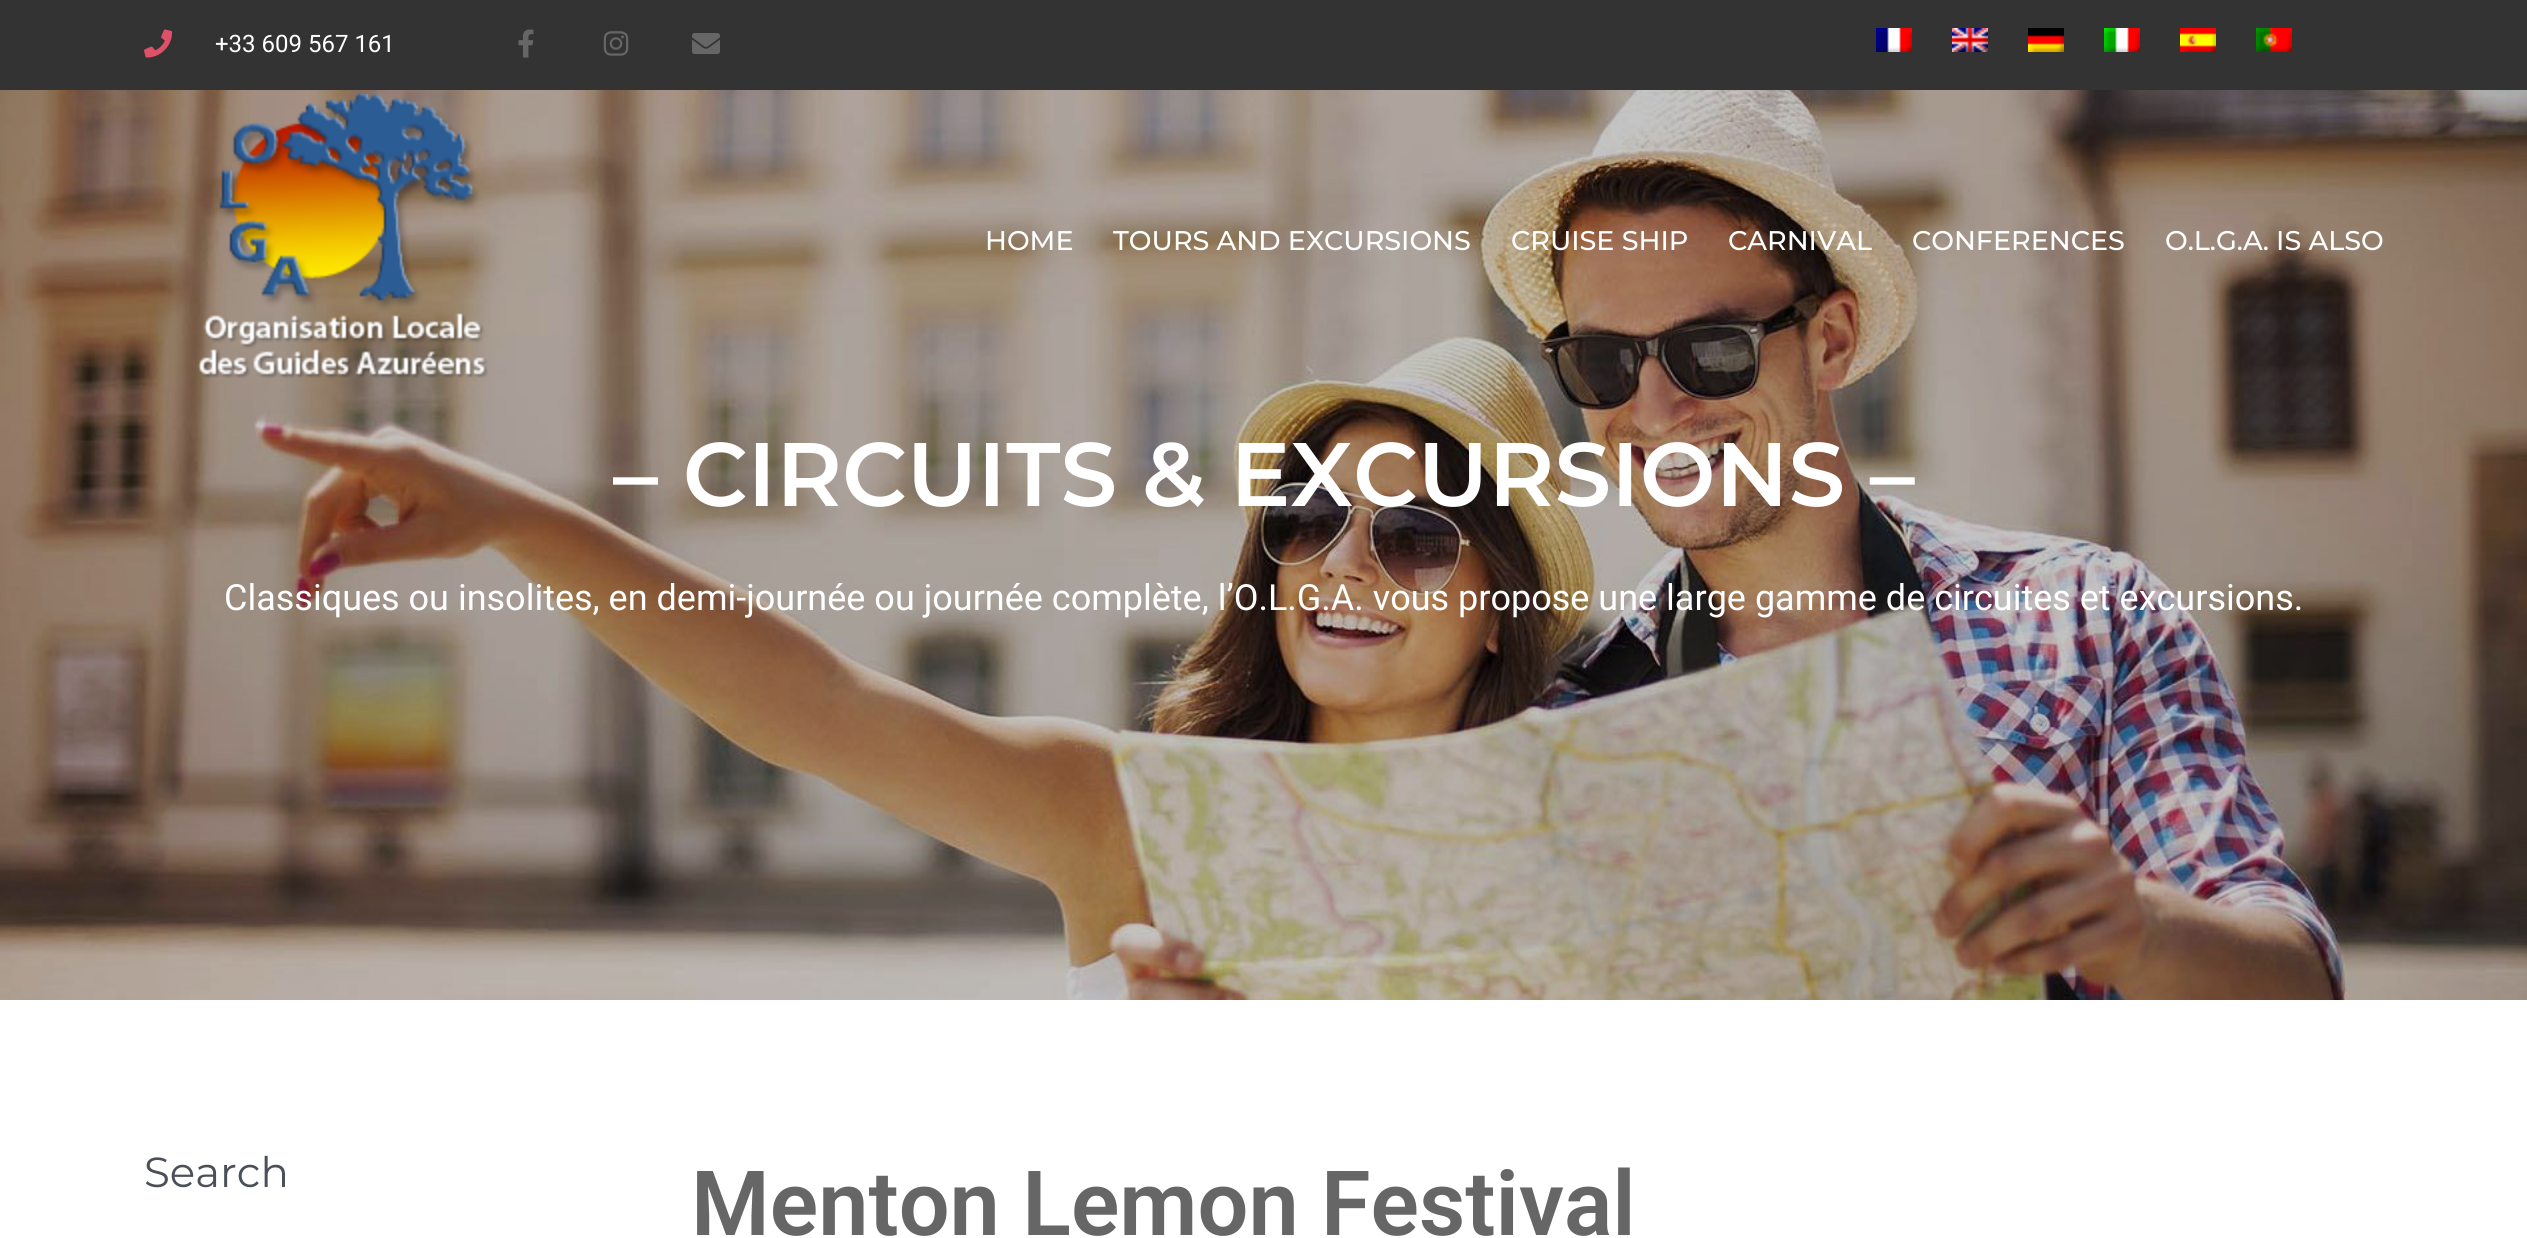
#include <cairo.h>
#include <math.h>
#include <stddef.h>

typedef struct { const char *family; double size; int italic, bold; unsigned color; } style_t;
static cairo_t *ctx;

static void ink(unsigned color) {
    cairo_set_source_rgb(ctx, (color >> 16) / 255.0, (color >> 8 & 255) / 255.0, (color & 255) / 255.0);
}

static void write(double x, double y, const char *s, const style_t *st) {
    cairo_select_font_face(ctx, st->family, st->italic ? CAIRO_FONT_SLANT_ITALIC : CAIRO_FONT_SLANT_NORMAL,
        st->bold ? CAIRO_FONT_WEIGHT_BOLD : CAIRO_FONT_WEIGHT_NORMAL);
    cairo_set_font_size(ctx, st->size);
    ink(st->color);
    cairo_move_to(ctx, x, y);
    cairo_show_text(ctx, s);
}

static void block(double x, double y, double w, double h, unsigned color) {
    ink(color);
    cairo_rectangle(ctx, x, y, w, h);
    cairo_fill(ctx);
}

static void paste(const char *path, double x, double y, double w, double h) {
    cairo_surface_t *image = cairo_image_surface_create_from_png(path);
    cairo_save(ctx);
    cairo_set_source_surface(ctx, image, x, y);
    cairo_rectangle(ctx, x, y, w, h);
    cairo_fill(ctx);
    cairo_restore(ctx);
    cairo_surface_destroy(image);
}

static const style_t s1 = {"Roboto", 24, 0, 0, 0xffffff};
static const style_t s2 = {"Montserrat Medium", 27, 0, 0, 0xffffff};
static const style_t s3 = {"Montserrat SemiBold", 90, 0, 0, 0xffffff};
static const style_t s4 = {"Roboto", 36, 0, 0, 0xffffff};
static const style_t s5 = {"Montserrat", 42, 0, 0, 0x4b4f58};
static const style_t s6 = {"Roboto SemiBold", 90, 0, 0, 0x666666};

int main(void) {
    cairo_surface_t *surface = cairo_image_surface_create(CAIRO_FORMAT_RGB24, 2527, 1238);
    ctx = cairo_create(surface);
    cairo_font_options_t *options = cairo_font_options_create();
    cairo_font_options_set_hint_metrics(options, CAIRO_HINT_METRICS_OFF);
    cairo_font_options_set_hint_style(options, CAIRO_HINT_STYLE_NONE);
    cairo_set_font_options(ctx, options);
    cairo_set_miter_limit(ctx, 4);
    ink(0xffffff);
    cairo_paint(ctx);
    block(0, 0, 2527, 90, 0x333333);
    paste("pic1.png", 144, 29, 29, 29);
    write(215, 52, "+33 609 567 161", &s1);
    paste("pic2.png", 518, 29, 16, 29);
    paste("pic3.png", 603, 31, 26, 25);
    paste("pic4.png", 692, 33, 28, 21);
    paste("pic5.png", 1876, 28, 36, 24);
    paste("pic6.png", 1952, 28, 36, 24);
    paste("pic7.png", 2028, 28, 36, 24);
    paste("pic8.png", 2104, 28, 36, 24);
    paste("pic9.png", 2180, 28, 36, 24);
    paste("pic10.png", 2256, 28, 36, 24);
    paste("pic12.png", 0, 90, 2527, 910);
    paste("pic11.png", 197, 93, 291, 285);
    write(985, 250, "HOME", &s2);
    write(1113, 250, "TOURS AND EXCURSIONS", &s2);
    write(1511, 250, "CRUISE SHIP", &s2);
    write(1728, 250, "CARNIVAL", &s2);
    write(1912, 250, "CONFERENCES", &s2);
    write(2165, 250, "O.L.G.A. IS ALSO", &s2);
    write(613, 506, "– CIRCUITS & EXCURSIONS –", &s3);
    write(224, 610, "Classiques ou insolites, en demi-journée ou journée complète, l’O.L.G.A. vous propose une large gamme de circuites et excursions.", &s4);
    write(144, 1187, "Search", &s5);
    write(691, 1235, "Menton Lemon Festival", &s6);
    cairo_surface_write_to_png(surface, "screenshot.png");
    cairo_font_options_destroy(options);
    cairo_destroy(ctx);
    cairo_surface_destroy(surface);
    return 0;
}
